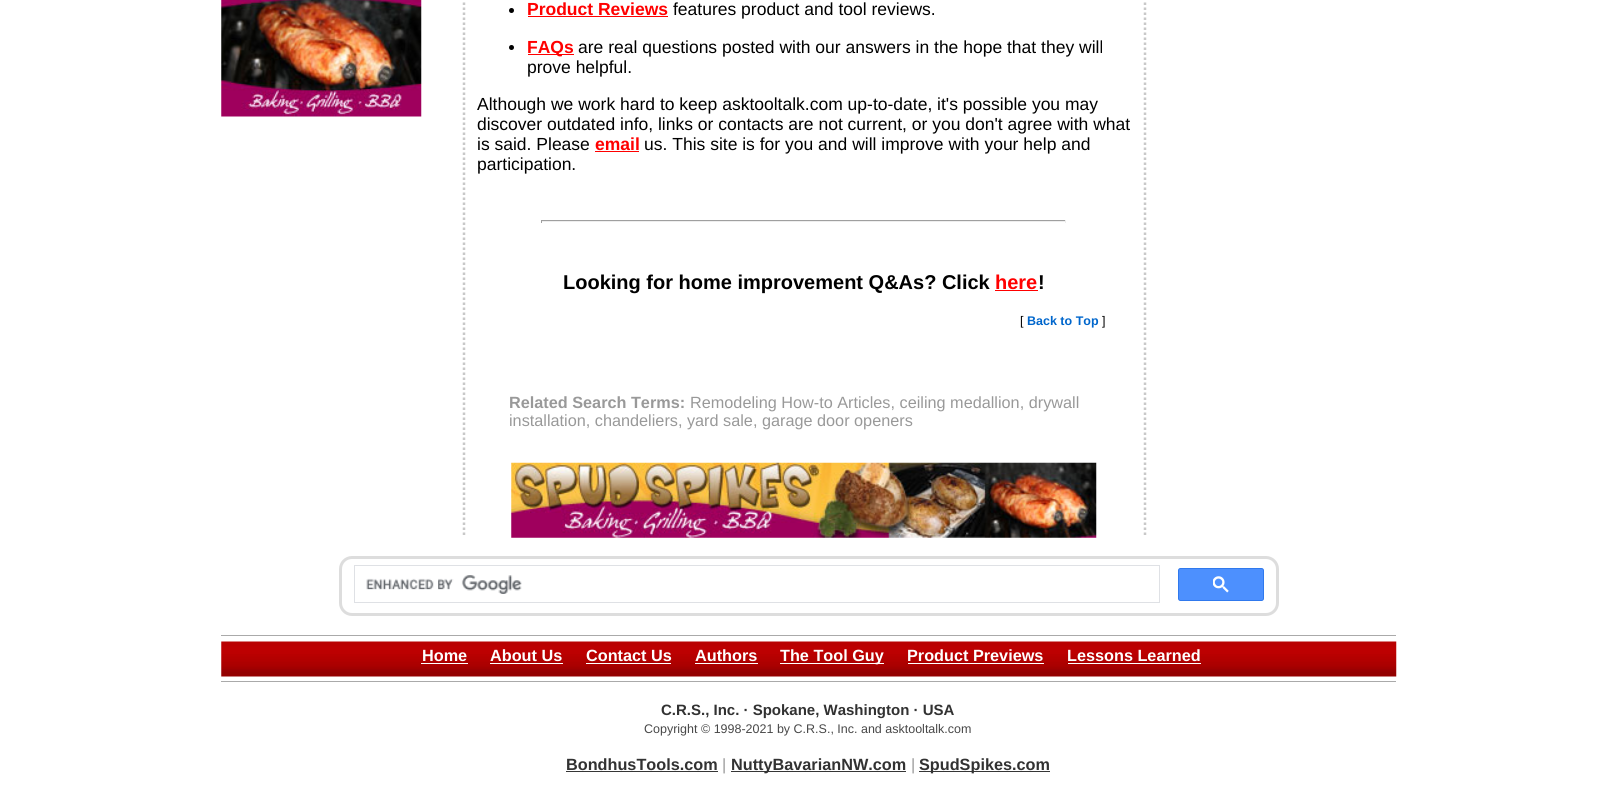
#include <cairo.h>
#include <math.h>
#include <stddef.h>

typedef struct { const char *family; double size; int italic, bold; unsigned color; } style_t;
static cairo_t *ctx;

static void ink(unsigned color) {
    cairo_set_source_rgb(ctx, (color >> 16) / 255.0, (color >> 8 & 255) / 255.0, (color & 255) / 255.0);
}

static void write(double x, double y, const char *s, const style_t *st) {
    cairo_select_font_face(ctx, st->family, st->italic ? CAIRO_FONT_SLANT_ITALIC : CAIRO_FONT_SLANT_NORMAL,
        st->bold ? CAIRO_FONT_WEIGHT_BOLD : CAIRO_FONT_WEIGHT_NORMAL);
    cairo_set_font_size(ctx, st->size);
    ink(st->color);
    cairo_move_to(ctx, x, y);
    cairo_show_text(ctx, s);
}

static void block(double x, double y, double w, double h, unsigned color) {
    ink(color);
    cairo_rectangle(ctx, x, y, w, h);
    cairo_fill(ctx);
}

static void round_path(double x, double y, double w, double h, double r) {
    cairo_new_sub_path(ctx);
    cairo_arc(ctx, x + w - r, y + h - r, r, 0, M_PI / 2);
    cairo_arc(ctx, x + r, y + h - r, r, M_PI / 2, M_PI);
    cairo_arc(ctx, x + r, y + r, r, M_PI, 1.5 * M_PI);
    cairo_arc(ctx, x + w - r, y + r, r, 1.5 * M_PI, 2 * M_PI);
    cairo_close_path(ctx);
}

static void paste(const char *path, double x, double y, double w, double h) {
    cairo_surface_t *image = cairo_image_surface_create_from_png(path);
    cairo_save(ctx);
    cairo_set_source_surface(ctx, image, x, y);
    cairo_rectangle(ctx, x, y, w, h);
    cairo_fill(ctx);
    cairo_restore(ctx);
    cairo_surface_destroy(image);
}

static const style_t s1 = {"Liberation Sans", 17.5, 0, 1, 0xff0000};
static const style_t s2 = {"Liberation Sans", 17.5, 0, 0, 0x000000};
static const style_t s3 = {"Liberation Sans", 20, 0, 1, 0x000000};
static const style_t s4 = {"Liberation Sans", 20, 0, 1, 0xff0000};
static const style_t s5 = {"Liberation Sans", 12.5, 0, 0, 0x000000};
static const style_t s6 = {"Liberation Sans", 12.5, 0, 1, 0x0066cc};
static const style_t s7 = {"Liberation Sans", 16.25, 0, 1, 0x999999};
static const style_t s8 = {"Liberation Sans", 16.25, 0, 0, 0x999999};
static const style_t s9 = {"Liberation Sans", 16.25, 0, 1, 0xffffff};
static const style_t s10 = {"Liberation Sans", 15, 0, 1, 0x323232};
static const style_t s11 = {"Liberation Sans", 12.5, 0, 0, 0x484848};
static const style_t s12 = {"Liberation Sans", 16.25, 0, 1, 0x323232};

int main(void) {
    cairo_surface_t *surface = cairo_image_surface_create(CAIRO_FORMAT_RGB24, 1616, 806);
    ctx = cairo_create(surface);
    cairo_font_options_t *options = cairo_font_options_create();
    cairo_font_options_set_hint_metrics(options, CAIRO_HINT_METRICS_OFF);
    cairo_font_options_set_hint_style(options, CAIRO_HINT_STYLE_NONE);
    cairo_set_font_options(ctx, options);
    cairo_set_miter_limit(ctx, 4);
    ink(0xffffff);
    cairo_paint(ctx);
    paste("pic1.png", 221, 0, 201, 117);
    cairo_new_path(ctx);
    cairo_move_to(ctx, 1145, -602.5);
    cairo_line_to(ctx, 1145, 537.5);
    ink(0xc8c8c8);
    cairo_set_line_width(ctx, 2.5);
    cairo_set_dash(ctx, (double[]){2.5, 2.5}, 2, 0);
    cairo_stroke(ctx);
    cairo_new_path(ctx);
    cairo_move_to(ctx, 464, -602.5);
    cairo_line_to(ctx, 464, 537.5);
    cairo_stroke(ctx);
    ink(0x000000);
    cairo_arc(ctx, 511.5, 10.5, 2.5, 0, 2 * M_PI);
    cairo_fill(ctx);
    write(527, 15, "Product Reviews", &s1);
    block(528, 16, 140, 1, 0xff0000);
    write(673, 15, "features product and tool reviews.", &s2);
    cairo_new_path(ctx);
    cairo_arc(ctx, 511.5, 47.5, 2.5, 0, 2 * M_PI);
    cairo_fill(ctx);
    block(528, 54, 46, 1, 0xff0000);
    write(527, 53, "FAQs", &s1);
    write(578, 53, "are real questions posted with our answers in the hope that they will", &s2);
    write(527, 73, "prove helpful.", &s2);
    write(477, 110, "Although we work hard to keep asktooltalk.com up-to-date, it's possible you may", &s2);
    write(477, 130, "discover outdated info, links or contacts are not current, or you don't agree with what", &s2);
    write(477, 150, "is said. Please", &s2);
    write(595, 150, "email", &s1);
    block(595, 151, 44, 1, 0xff0000);
    write(644, 150, "us. This site is for you and will improve with your help and", &s2);
    write(477, 170, "participation.", &s2);
    block(541, 220, 525, 1, 0x9f9f9f);
    block(1065, 220, 1, 3, 0xeeeeee);
    block(541, 221, 525, 1, 0xeeeeee);
    block(541, 220, 1, 3, 0x9f9f9f);
    write(563, 289, "Looking for home improvement Q&As? Click", &s3);
    write(995, 289, "here", &s4);
    block(995, 290, 43, 1, 0xff0000);
    write(1038, 289, "!", &s3);
    write(1020, 325, "[", &s5);
    write(1027, 325, "Back to Top", &s6);
    write(1102, 325, "]", &s5);
    write(509, 408, "Related Search Terms:", &s7);
    write(690, 408, "Remodeling How-to Articles, ceiling medallion, drywall", &s8);
    write(509, 426, "installation, chandeliers, yard sale, garage door openers", &s8);
    paste("pic2.png", 511, 462, 586, 76);
    round_path(340.5, 557.5, 937, 57, 11.5);
    ink(0xdddddd);
    cairo_set_line_width(ctx, 3);
    cairo_set_dash(ctx, NULL, 0, 0);
    cairo_stroke(ctx);
    cairo_rectangle(ctx, 354.5, 565.5, 805, 37);
    ink(0xdfe1e5);
    cairo_set_line_width(ctx, 1);
    cairo_stroke(ctx);
    paste("pic3.png", 366, 575, 156, 19);
    ink(0x4d90fe);
    round_path(1178.5, 568.5, 85, 32, 2);
    cairo_fill_preserve(ctx);
    ink(0x3079ed);
    cairo_stroke(ctx);
    paste("pic4.png", 1213, 576, 16, 17);
    block(221, 635, 1175, 1, 0xaaaaaa);
    paste("pic5.png", 221, 641, 1176, 36);
    write(422, 661, "Home", &s9);
    block(421, 663, 47, 1, 0xffffff);
    write(490, 661, "About Us", &s9);
    block(490, 663, 73, 1, 0xffffff);
    write(586, 661, "Contact Us", &s9);
    block(586, 663, 85, 1, 0xffffff);
    write(695, 661, "Authors", &s9);
    block(695, 663, 63, 1, 0xffffff);
    block(780, 663, 104, 1, 0xffffff);
    write(780, 661, "The Tool Guy", &s9);
    write(907, 661, "Product Previews", &s9);
    block(908, 663, 136, 1, 0xffffff);
    write(1067, 661, "Lessons Learned", &s9);
    block(1068, 663, 133, 1, 0xffffff);
    block(221, 681, 1175, 1, 0xaaaaaa);
    write(661, 715, "C.R.S., Inc. · Spokane, Washington · USA", &s10);
    write(644, 733, "Copyright © 1998-2021 by C.R.S., Inc. and asktooltalk.com", &s11);
    write(566, 770, "BondhusTools.com", &s12);
    block(566, 771, 152, 1, 0x363636);
    write(722, 770, "|", &s8);
    block(731, 771, 175, 1, 0x363636);
    write(731, 770, "NuttyBavarianNW.com", &s12);
    write(911, 770, "|", &s8);
    block(919, 771, 131, 1, 0x363636);
    write(919, 770, "SpudSpikes.com", &s12);
    cairo_surface_write_to_png(surface, "screenshot.png");
    cairo_font_options_destroy(options);
    cairo_destroy(ctx);
    cairo_surface_destroy(surface);
    return 0;
}
